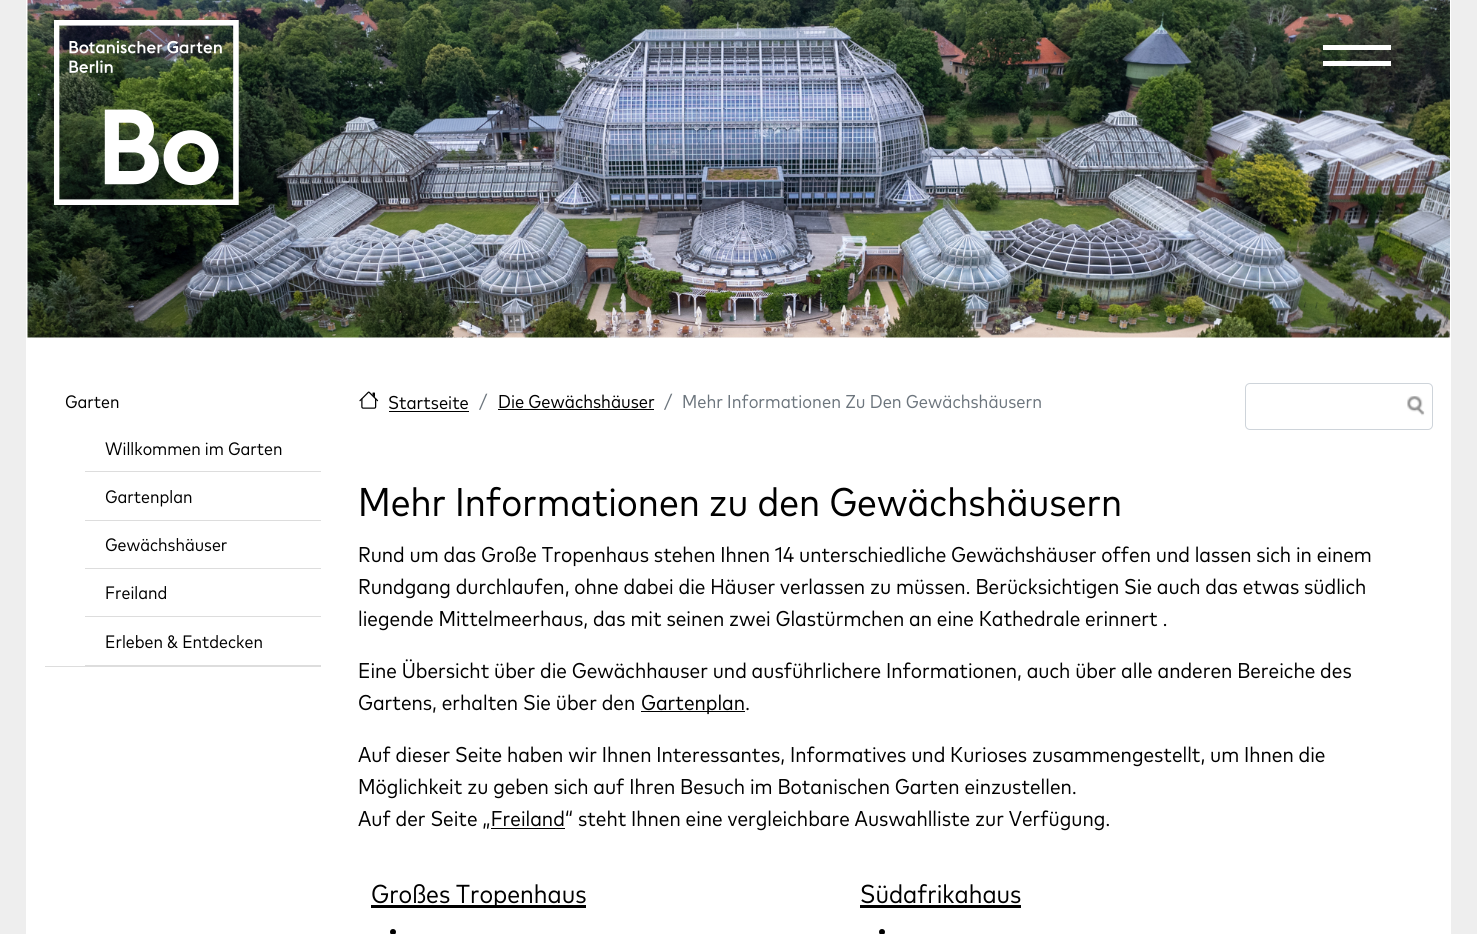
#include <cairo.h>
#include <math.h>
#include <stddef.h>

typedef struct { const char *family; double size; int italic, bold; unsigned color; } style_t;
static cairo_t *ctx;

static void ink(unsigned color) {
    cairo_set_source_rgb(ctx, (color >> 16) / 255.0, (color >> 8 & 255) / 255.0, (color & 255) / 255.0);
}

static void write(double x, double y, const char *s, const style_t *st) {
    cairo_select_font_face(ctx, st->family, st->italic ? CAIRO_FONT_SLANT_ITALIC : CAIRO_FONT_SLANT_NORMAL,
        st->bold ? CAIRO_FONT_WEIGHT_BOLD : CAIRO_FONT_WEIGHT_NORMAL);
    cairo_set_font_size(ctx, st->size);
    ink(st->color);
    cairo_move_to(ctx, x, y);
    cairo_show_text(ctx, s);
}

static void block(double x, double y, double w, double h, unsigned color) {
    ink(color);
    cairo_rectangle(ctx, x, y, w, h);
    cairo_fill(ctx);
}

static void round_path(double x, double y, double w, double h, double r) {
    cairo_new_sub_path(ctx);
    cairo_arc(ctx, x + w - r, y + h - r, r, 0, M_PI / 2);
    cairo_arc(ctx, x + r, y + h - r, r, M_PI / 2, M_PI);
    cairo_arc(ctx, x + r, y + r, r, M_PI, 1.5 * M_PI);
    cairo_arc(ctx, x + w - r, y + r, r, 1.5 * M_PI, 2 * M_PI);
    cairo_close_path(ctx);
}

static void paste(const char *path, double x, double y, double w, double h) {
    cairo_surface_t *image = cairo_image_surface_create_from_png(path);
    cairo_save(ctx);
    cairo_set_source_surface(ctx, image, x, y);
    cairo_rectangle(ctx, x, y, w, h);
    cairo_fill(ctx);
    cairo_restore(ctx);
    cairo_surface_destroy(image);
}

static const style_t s1 = {"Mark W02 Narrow", 18, 0, 0, 0x000000};
static const style_t s2 = {"Mark W02 Narrow", 18.6, 0, 0, 0x000000};
static const style_t s3 = {"Mark W02 Narrow", 18.6, 0, 0, 0x6c757d};
static const style_t s4 = {"Mark W02 Narrow", 40, 0, 0, 0x000000};
static const style_t s5 = {"Mark W02 Narrow", 21.4, 0, 0, 0x000000};
static const style_t s6 = {"Mark W02 Narrow", 26, 0, 0, 0x000000};

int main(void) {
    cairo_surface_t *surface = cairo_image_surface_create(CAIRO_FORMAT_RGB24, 1477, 934);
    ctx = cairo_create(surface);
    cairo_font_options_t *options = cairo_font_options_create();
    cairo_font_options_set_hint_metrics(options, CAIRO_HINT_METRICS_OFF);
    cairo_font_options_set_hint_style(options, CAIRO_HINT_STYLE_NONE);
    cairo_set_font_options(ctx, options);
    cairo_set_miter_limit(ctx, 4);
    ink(0xeeeeee);
    cairo_paint(ctx);
    block(26, 0, 1425, 934, 0xffffff);
    paste("pic2.png", 27, 0, 1423, 338);
    paste("pic1.png", 54, 20, 185, 185);
    block(1323, 45, 68, 5, 0xffffff);
    block(1323, 61, 68, 5, 0xffffff);
    block(45, 666, 276, 1, 0xdddddd);
    write(65, 408, "Garten", &s1);
    block(85, 471, 236, 1, 0xdddddd);
    write(105, 455, "Willkommen im Garten", &s1);
    block(85, 520, 236, 1, 0xdddddd);
    write(105, 503, "Gartenplan", &s1);
    block(85, 568, 236, 1, 0xdddddd);
    write(105, 551, "Gewächshäuser", &s1);
    block(85, 616, 236, 1, 0xdddddd);
    write(105, 599, "Freiland", &s1);
    block(85, 665, 236, 1, 0xdddddd);
    write(105, 648, "Erleben & Entdecken", &s1);
    paste("pic3.png", 359, 391, 20, 18);
    write(388, 409, "Startseite", &s2);
    block(389, 411, 80, 1, 0x000000);
    write(479, 408, "/", &s3);
    write(498, 408, "Die Gewächshäuser", &s2);
    block(498, 409, 156, 1, 0x000000);
    write(664, 408, "/", &s3);
    write(682, 408, "Mehr Informationen Zu Den Gewächshäusern", &s3);
    round_path(1245.5, 383.5, 187, 46, 4.5);
    ink(0xced4da);
    cairo_set_line_width(ctx, 1);
    cairo_stroke(ctx);
    paste("pic4.png", 1407, 396, 18, 20);
    write(358, 516, "Mehr Informationen zu den Gewächshäusern", &s4);
    write(358, 562, "Rund um das Große Tropenhaus stehen Ihnen 14 unterschiedliche Gewächshäuser offen und lassen sich in einem", &s5);
    write(358, 594, "Rundgang durchlaufen, ohne dabei die Häuser verlassen zu müssen. Berücksichtigen Sie auch das etwas südlich", &s5);
    write(358, 626, "liegende Mittelmeerhaus, das mit seinen zwei Glastürmchen an eine Kathedrale erinnert .", &s5);
    write(358, 678, "Eine Übersicht über die Gewächhauser und ausführlichere Informationen, auch über alle anderen Bereiche des", &s5);
    write(358, 710, "Gartens, erhalten Sie über den", &s5);
    block(641, 711, 104, 1, 0x000000);
    write(641, 710, "Gartenplan.", &s5);
    write(358, 762, "Auf dieser Seite haben wir Ihnen Interessantes, Informatives und Kurioses zusammengestellt, um Ihnen die", &s5);
    write(358, 794, "Möglichkeit zu geben sich auf Ihren Besuch im Botanischen Garten einzustellen.", &s5);
    write(358, 826, "Auf der Seite „Freiland“ steht Ihnen eine vergleichbare Auswahlliste zur Verfügung.", &s5);
    block(491, 828, 74, 1, 0x000000);
    block(371, 905, 215, 3, 0x000000);
    write(371, 903, "Großes Tropenhaus", &s6);
    cairo_new_path(ctx);
    cairo_arc(ctx, 393, 932, 3, 0, 2 * M_PI);
    cairo_fill(ctx);
    write(860, 903, "Südafrikahaus", &s6);
    block(860, 905, 161, 3, 0x000000);
    cairo_new_path(ctx);
    cairo_arc(ctx, 882, 932, 3, 0, 2 * M_PI);
    cairo_fill(ctx);
    cairo_surface_write_to_png(surface, "screenshot.png");
    cairo_font_options_destroy(options);
    cairo_destroy(ctx);
    cairo_surface_destroy(surface);
    return 0;
}
